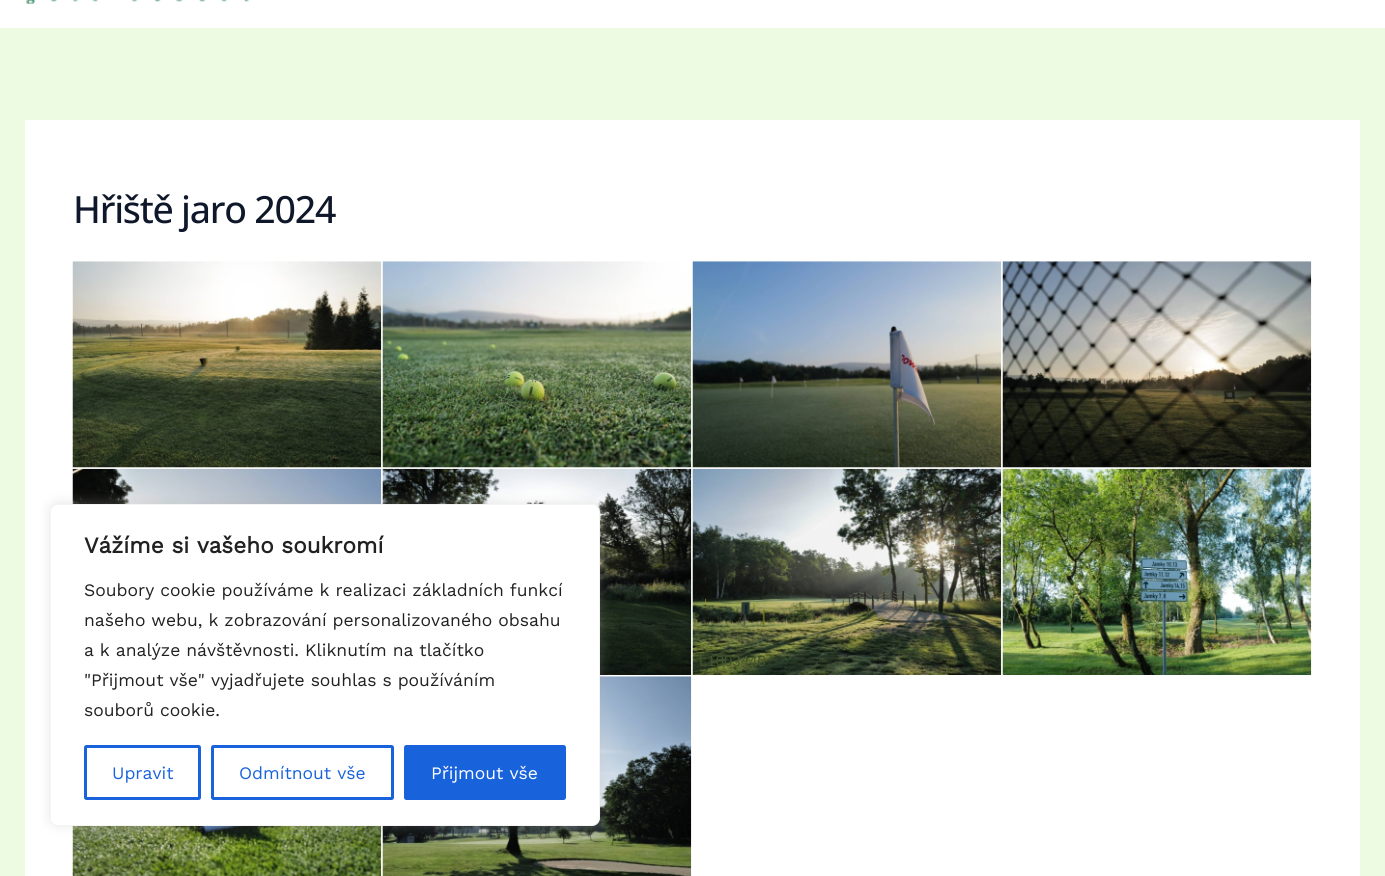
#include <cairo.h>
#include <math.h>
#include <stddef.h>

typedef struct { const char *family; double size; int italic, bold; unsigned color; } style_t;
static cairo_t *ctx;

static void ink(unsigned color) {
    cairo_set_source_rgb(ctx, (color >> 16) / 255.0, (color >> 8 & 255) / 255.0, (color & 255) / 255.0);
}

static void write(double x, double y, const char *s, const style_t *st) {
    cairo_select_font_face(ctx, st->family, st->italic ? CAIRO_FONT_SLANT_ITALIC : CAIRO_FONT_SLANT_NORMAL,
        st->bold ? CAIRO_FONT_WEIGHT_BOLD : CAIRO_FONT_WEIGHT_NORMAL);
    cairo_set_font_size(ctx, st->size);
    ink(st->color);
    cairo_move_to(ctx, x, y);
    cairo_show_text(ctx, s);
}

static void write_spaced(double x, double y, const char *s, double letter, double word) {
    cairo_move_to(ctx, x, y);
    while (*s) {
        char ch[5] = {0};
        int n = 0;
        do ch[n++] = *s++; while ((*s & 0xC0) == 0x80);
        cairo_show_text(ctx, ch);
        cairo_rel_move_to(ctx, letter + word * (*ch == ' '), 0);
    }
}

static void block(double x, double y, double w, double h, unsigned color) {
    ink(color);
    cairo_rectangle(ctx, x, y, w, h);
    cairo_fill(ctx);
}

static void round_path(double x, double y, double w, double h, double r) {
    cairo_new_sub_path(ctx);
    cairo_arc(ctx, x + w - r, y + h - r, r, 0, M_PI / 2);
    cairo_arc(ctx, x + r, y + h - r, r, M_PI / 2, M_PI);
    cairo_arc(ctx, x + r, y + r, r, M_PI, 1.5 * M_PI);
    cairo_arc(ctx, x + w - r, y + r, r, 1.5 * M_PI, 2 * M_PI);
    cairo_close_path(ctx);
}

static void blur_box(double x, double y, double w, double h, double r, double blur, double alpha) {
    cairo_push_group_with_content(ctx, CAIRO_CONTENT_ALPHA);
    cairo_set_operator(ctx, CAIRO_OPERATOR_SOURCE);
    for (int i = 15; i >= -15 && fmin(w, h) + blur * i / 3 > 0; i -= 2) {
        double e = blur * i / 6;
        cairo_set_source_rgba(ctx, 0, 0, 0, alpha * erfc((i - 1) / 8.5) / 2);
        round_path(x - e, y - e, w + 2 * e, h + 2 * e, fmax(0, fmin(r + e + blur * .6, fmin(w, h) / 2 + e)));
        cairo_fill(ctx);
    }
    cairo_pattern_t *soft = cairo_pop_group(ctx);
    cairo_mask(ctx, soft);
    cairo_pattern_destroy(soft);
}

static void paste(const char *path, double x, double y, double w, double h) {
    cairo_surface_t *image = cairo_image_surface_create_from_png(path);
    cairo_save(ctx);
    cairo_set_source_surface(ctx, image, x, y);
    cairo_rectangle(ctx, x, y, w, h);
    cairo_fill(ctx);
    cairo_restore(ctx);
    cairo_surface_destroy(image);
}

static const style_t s1 = {"Liberation Sans", 15, 0, 0, 0x43522a};
static const style_t s2 = {"Work Sans", 22.5, 0, 1, 0x212121};
static const style_t s3 = {"Work Sans", 17.5, 0, 0, 0x212121};
static const style_t s4 = {"Work Sans", 17.5, 0, 0, 0x1863dc};
static const style_t s5 = {"Work Sans", 17.5, 0, 0, 0xffffff};

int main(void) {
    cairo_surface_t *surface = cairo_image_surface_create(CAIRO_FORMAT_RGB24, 1385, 876);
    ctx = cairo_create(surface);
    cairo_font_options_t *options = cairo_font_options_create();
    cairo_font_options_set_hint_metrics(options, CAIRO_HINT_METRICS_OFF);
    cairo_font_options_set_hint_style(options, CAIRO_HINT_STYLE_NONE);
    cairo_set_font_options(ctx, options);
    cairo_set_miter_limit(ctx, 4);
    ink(0xedfbe2);
    cairo_paint(ctx);
    block(0, 0, 1385, 28, 0xffffff);
    paste("pic1.png", 26, 0, 223, 4);
    block(25, 120, 1335, 756, 0xffffff);
    cairo_select_font_face(ctx, "Open Sans Medium", CAIRO_FONT_SLANT_NORMAL, CAIRO_FONT_WEIGHT_NORMAL);
    cairo_set_font_size(ctx, 37.5);
    ink(0x0f172a);
    write_spaced(73, 223, "Hřiště jaro 2024", -1.25, 0);
    paste("pic2.png", 72, 261, 310, 207);
    paste("pic3.png", 382, 261, 310, 207);
    paste("pic4.png", 692, 261, 310, 207);
    paste("pic5.png", 1002, 261, 310, 207);
    paste("pic6.png", 72, 468, 310, 36);
    paste("pic7.png", 382, 468, 310, 207);
    paste("pic8.png", 692, 468, 310, 207);
    write(699, 666, "L1003440", &s1);
    paste("pic9.png", 1002, 468, 310, 207);
    paste("pic10.png", 72, 826, 310, 50);
    paste("pic11.png", 382, 676, 310, 200);
    ink(0xacabab);
    blur_box(50, 503, 550, 322, 8, 6, 0.3);
    ink(0xffffff);
    round_path(50.5, 504.5, 549, 321, 7.5);
    cairo_fill_preserve(ctx);
    ink(0xf4f4f4);
    cairo_set_line_width(ctx, 1);
    cairo_stroke(ctx);
    write(84, 553, "Vážíme si vašeho soukromí", &s2);
    write(84, 596, "Soubory cookie používáme k realizaci základních funkcí", &s3);
    write(84, 626, "našeho webu, k zobrazování personalizovaného obsahu", &s3);
    write(84, 656, "a k analýze návštěvnosti. Kliknutím na tlačítko", &s3);
    write(84, 686, "\"Přijmout vše\" vyjadřujete souhlas s používáním", &s3);
    write(84, 716, "souborů cookie.", &s3);
    round_path(85.5, 746.5, 114, 52, 1);
    ink(0x1863dc);
    cairo_set_line_width(ctx, 3);
    cairo_stroke(ctx);
    write(112, 779, "Upravit", &s4);
    round_path(212.5, 746.5, 180, 52, 1);
    cairo_stroke(ctx);
    write(239, 779, "Odmítnout vše", &s4);
    round_path(405.5, 746.5, 159, 52, 1);
    cairo_fill_preserve(ctx);
    cairo_stroke(ctx);
    write(431, 779, "Přijmout vše", &s5);
    cairo_surface_write_to_png(surface, "screenshot.png");
    cairo_font_options_destroy(options);
    cairo_destroy(ctx);
    cairo_surface_destroy(surface);
    return 0;
}
